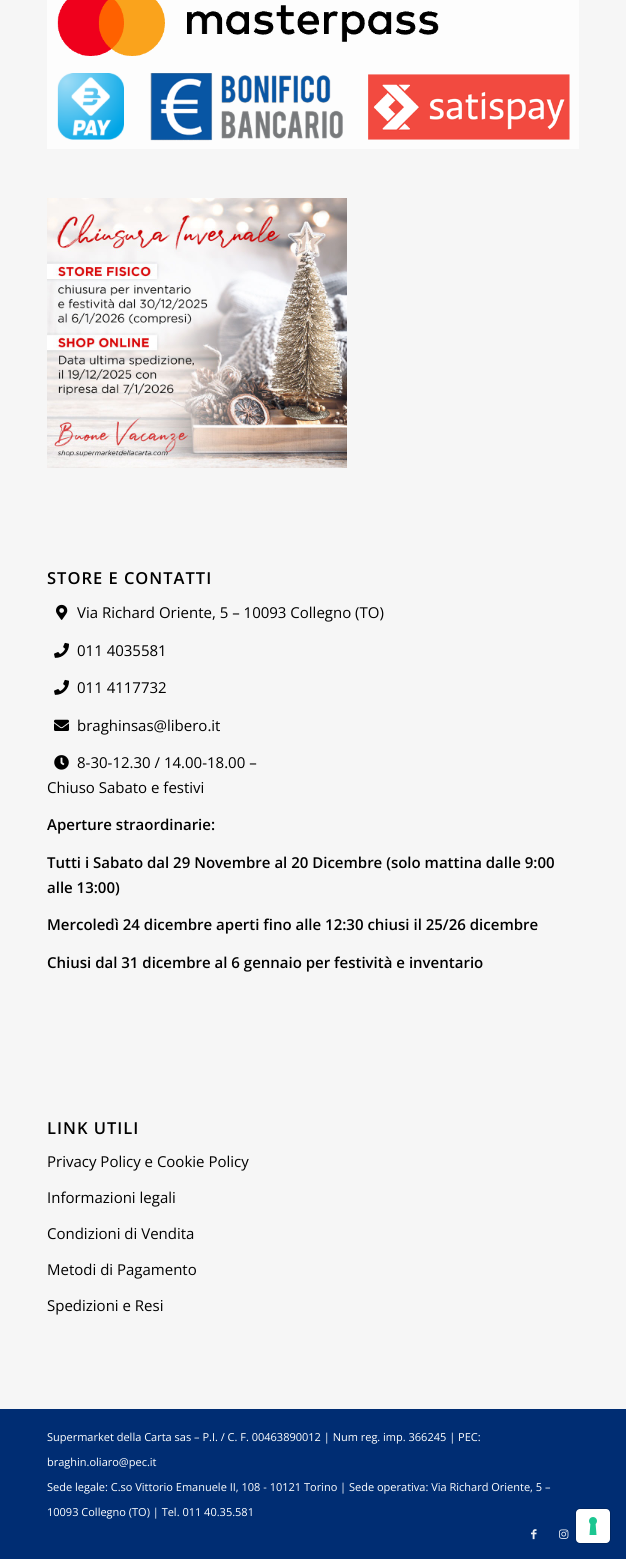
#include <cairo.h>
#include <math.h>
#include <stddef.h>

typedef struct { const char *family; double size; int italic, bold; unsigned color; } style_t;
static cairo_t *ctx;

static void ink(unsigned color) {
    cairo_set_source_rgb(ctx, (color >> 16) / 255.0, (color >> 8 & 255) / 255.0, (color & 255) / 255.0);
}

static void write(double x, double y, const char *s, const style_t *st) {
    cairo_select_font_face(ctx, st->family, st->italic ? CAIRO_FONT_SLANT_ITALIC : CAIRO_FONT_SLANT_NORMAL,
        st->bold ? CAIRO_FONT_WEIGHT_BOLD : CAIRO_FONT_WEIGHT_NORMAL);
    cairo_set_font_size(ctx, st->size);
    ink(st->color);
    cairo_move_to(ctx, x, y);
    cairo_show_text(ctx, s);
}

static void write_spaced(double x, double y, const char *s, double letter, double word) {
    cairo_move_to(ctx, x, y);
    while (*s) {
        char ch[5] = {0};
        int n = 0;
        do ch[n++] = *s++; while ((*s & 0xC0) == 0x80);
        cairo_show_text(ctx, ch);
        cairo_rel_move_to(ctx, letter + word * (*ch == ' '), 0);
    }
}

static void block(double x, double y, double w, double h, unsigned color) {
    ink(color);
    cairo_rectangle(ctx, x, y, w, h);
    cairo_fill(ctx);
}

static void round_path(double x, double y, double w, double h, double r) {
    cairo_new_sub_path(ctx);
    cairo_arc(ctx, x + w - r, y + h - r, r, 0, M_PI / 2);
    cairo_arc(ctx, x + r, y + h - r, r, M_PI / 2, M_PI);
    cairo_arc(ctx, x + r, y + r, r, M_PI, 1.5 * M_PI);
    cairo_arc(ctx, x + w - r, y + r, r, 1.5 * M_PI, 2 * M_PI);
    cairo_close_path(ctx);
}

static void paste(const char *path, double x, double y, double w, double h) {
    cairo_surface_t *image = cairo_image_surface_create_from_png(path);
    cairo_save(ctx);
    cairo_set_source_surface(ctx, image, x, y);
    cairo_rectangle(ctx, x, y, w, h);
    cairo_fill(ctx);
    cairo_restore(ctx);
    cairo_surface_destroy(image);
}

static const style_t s1 = {"Open Sans", 15, 0, 0, 0x000000};
static const style_t s2 = {"Open Sans SemiBold", 15, 0, 0, 0x000000};
static const style_t s3 = {"Open Sans", 11, 0, 0, 0xffffff};

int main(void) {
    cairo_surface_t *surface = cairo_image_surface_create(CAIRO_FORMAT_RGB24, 626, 1559);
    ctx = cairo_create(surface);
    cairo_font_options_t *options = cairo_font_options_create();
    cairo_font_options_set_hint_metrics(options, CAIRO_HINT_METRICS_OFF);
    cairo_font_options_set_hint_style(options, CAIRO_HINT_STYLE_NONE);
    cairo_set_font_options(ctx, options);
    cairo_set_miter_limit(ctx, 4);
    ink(0xf6f6f6);
    cairo_paint(ctx);
    paste("pic1.png", 47, 0, 532, 149);
    paste("pic2.png", 47, 198, 300, 270);
    cairo_select_font_face(ctx, "Open Sans SemiBold", CAIRO_FONT_SLANT_NORMAL, CAIRO_FONT_WEIGHT_NORMAL);
    cairo_set_font_size(ctx, 16.5);
    ink(0x000000);
    write_spaced(47, 584, "STORE E CONTATTI", 1, 0);
    paste("pic3.png", 56, 604, 12, 16);
    write(77, 618, "Via Richard Oriente, 5 – 10093 Collegno (TO)", &s1);
    paste("pic4.png", 54, 642, 15, 16);
    write(77, 656, "011 4035581", &s1);
    paste("pic4.png", 54, 679, 15, 16);
    write(77, 693, "011 4117732", &s1);
    paste("pic5.png", 54, 719, 15, 12);
    write(77, 731, "braghinsas@libero.it", &s1);
    paste("pic6.png", 54, 755, 15, 15);
    write(77, 768, "8-30-12.30 / 14.00-18.00 –", &s1);
    write(47, 793, "Chiuso Sabato e festivi", &s1);
    write(47, 830, "Aperture straordinarie:", &s2);
    write(47, 868, "Tutti i Sabato dal 29 Novembre al 20 Dicembre (solo mattina dalle 9:00", &s2);
    write(47, 893, "alle 13:00)", &s2);
    write(47, 930, "Mercoledì 24 dicembre aperti fino alle 12:30 chiusi il 25/26 dicembre", &s2);
    write(47, 968, "Chiusi dal 31 dicembre al 6 gennaio per festività e inventario", &s2);
    cairo_set_font_size(ctx, 16.5);
    write_spaced(47, 1134, "LINK UTILI", 1, 0);
    write(47, 1167, "Privacy Policy e Cookie Policy", &s1);
    write(47, 1203, "Informazioni legali", &s1);
    write(47, 1239, "Condizioni di Vendita", &s1);
    write(47, 1275, "Metodi di Pagamento", &s1);
    write(47, 1311, "Spedizioni e Resi", &s1);
    block(0, 1409, 626, 150, 0x002d73);
    write(47, 1441, "Supermarket della Carta sas – P.I. / C. F. 00463890012 | Num reg. imp. 366245 | PEC:", &s3);
    write(47, 1466, "braghin.oliaro@pec.it", &s3);
    write(47, 1491, "Sede legale: C.so Vittorio Emanuele II, 108 - 10121 Torino | Sede operativa: Via Richard Oriente, 5 –", &s3);
    write(47, 1516, "10093 Collegno (TO) | Tel. 011 40.35.581", &s3);
    paste("pic7.png", 531, 1529, 6, 11);
    paste("pic8.png", 559, 1529, 10, 10);
    round_path(575.5, 1508.5, 35, 35, 4.5);
    ink(0x002662);
    cairo_set_line_width(ctx, 1);
    cairo_stroke(ctx);
    ink(0xffffff);
    round_path(576, 1509, 34, 34, 4);
    cairo_fill(ctx);
    paste("pic9.png", 589, 1517, 8, 18);
    cairo_surface_write_to_png(surface, "screenshot.png");
    cairo_font_options_destroy(options);
    cairo_destroy(ctx);
    cairo_surface_destroy(surface);
    return 0;
}
